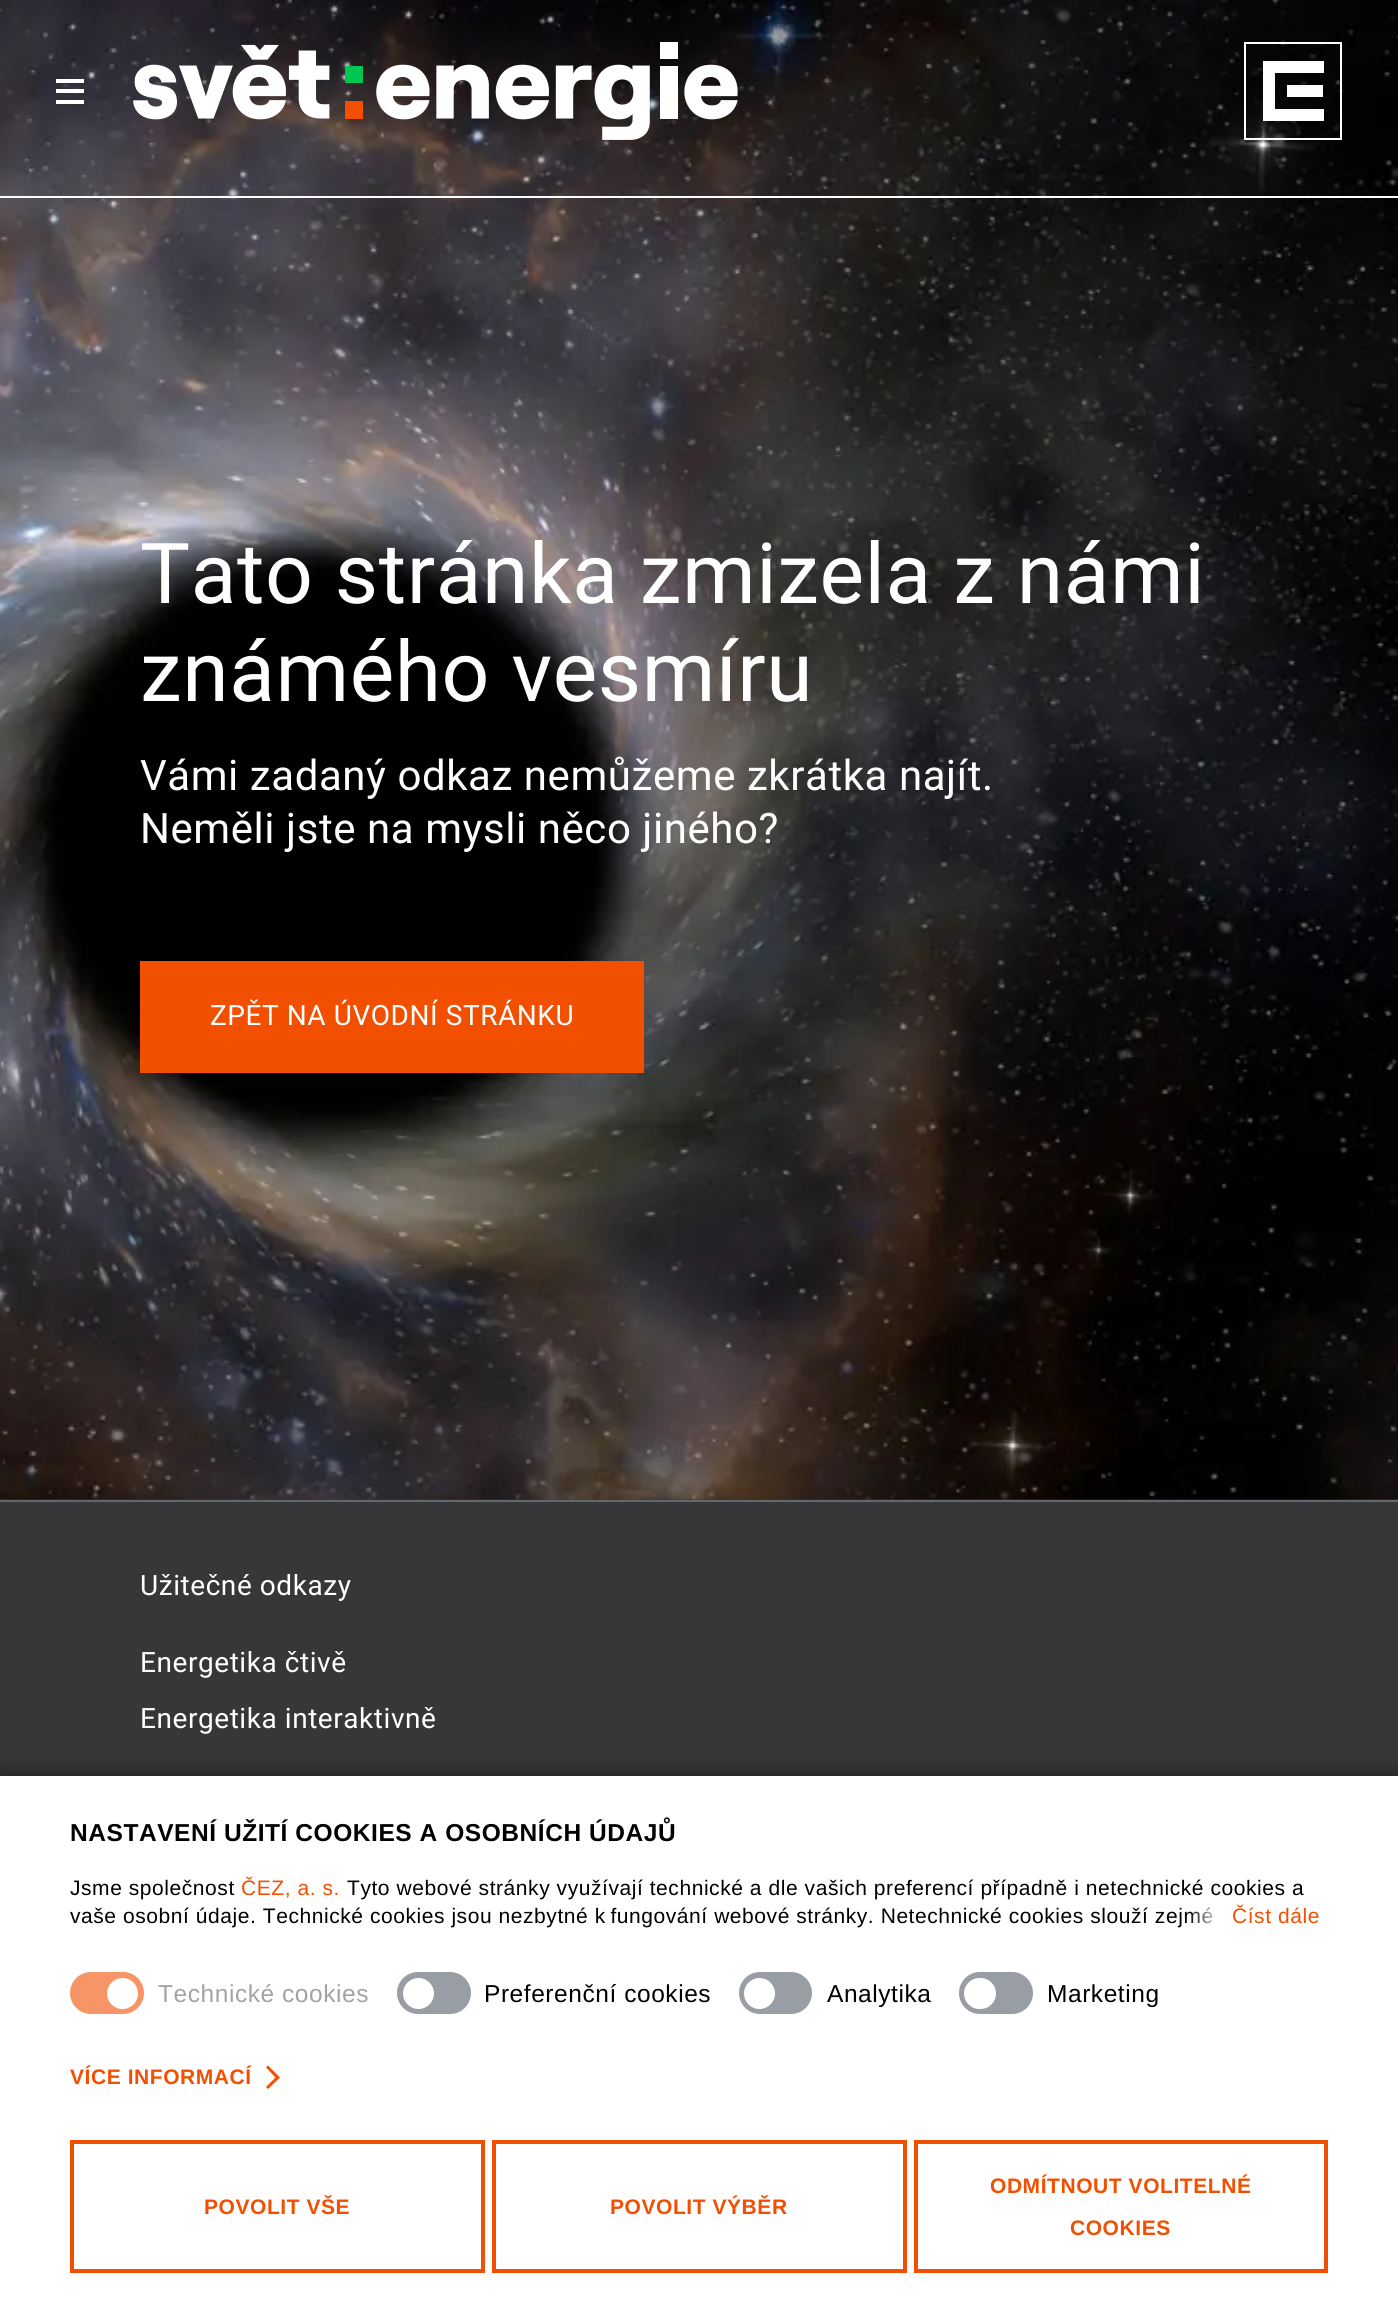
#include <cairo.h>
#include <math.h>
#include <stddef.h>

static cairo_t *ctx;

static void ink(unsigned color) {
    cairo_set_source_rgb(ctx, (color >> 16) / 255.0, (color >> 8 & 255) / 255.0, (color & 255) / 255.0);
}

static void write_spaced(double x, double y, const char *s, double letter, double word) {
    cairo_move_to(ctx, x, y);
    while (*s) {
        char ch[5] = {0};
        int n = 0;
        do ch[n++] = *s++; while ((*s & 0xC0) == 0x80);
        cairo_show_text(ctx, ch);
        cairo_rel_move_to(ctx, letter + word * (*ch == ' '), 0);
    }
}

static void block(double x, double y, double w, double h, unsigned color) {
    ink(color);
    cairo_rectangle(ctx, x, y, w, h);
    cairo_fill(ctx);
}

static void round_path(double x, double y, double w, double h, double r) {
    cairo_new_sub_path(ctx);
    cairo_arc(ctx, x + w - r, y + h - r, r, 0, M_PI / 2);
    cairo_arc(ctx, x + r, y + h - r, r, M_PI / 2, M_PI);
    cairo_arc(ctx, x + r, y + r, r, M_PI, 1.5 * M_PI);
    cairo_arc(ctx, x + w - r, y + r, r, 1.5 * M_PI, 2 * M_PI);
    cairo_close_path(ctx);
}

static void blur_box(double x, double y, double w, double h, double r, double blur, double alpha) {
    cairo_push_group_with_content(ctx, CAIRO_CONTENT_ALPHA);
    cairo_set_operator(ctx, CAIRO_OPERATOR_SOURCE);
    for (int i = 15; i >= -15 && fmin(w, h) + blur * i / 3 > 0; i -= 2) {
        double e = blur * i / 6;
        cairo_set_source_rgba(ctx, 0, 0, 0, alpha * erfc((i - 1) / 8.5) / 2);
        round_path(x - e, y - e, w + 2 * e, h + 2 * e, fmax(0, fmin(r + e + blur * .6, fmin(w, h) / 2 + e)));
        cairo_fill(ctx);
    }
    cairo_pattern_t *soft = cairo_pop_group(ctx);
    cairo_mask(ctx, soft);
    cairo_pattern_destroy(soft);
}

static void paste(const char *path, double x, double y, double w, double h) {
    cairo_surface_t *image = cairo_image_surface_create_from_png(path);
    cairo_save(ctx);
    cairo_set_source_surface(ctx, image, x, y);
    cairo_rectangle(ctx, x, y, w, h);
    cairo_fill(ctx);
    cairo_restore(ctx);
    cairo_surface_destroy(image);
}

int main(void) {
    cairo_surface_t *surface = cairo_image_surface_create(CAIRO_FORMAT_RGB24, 1398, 2315);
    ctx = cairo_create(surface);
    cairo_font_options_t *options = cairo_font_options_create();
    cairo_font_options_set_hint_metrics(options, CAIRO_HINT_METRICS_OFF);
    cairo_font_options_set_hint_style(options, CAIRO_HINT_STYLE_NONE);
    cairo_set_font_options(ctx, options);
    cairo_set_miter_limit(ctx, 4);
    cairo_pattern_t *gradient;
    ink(0x363738);
    cairo_paint(ctx);
    paste("pic2.png", 0, 0, 1398, 1500);
    block(0, 196, 1398, 2, 0xffffff);
    block(56, 79, 28, 4, 0xffffff);
    block(56, 89, 28, 4, 0xffffff);
    block(56, 100, 28, 4, 0xffffff);
    paste("pic1.png", 133, 42, 605, 98);
    cairo_rectangle(ctx, 1245, 43, 96, 96);
    cairo_stroke(ctx);
    block(1287, 85, 36, 12, 0xffffff);
    cairo_new_path(ctx);
    cairo_move_to(ctx, 1263, 61);
    cairo_line_to(ctx, 1263, 121);
    cairo_line_to(ctx, 1324, 121);
    cairo_line_to(ctx, 1324, 109);
    cairo_line_to(ctx, 1275, 109);
    cairo_line_to(ctx, 1275, 73);
    cairo_line_to(ctx, 1324, 73);
    cairo_line_to(ctx, 1324, 61);
    cairo_close_path(ctx);
    cairo_fill(ctx);
    cairo_select_font_face(ctx, "Roboto", CAIRO_FONT_SLANT_NORMAL, CAIRO_FONT_WEIGHT_NORMAL);
    cairo_set_font_size(ctx, 84);
    write_spaced(140, 603, "Tato stránka zmizela z námi", 0.56, 0);
    write_spaced(140, 701, "známého vesmíru", 0.56, 0);
    cairo_set_font_size(ctx, 42);
    write_spaced(140, 790, "Vámi zadaný odkaz nemůžeme zkrátka najít.", 0.56, 0);
    write_spaced(140, 843, "Neměli jste na mysli něco jiného?", 0.56, 0);
    block(140, 961, 504, 112, 0xf24f00);
    cairo_set_font_size(ctx, 28);
    ink(0xffffff);
    write_spaced(210, 1025, "ZPĚT NA ÚVODNÍ STRÁNKU", 0.56, 0);
    block(0, 1500, 1398, 2, 0x63666a);
    ink(0xffffff);
    write_spaced(140, 1595, "Užitečné odkazy", 0.56, 0);
    write_spaced(140, 1672, "Energetika čtivě", 0.56, 0);
    write_spaced(140, 1728, "Energetika interaktivně", 0.56, 0);
    ink(0x000000);
    blur_box(0, 1776, 1398, 539, 0, 13, 0.5);
    block(0, 1776, 1398, 539, 0xffffff);
    cairo_select_font_face(ctx, "Liberation Sans", CAIRO_FONT_SLANT_NORMAL, CAIRO_FONT_WEIGHT_BOLD);
    cairo_set_font_size(ctx, 24.5);
    ink(0x000000);
    write_spaced(70, 1841, "NASTAVENÍ UŽITÍ COOKIES A OSOBNÍCH ÚDAJŮ", 0.56, 0);
    cairo_select_font_face(ctx, "Liberation Sans", CAIRO_FONT_SLANT_NORMAL, CAIRO_FONT_WEIGHT_NORMAL);
    cairo_set_font_size(ctx, 21);
    write_spaced(70, 1895, "Jsme společnost", 0.56, 0);
    ink(0xf24f00);
    write_spaced(241, 1895, "ČEZ, a. s.", 0.56, 0);
    ink(0x000000);
    write_spaced(347, 1895, "Tyto webové stránky využívají technické a dle vašich preferencí případně i netechnické cookies a", 0.56, 0);
    write_spaced(70, 1923, "vaše osobní údaje. Technické cookies jsou nezbytné k fungování webové stránky. Netechnické cookies slouží zejmé", 0.56, 0);
    gradient = cairo_pattern_create_linear(1188, 1916, 1223, 1916);
    cairo_pattern_add_color_stop_rgba(gradient, 0, 1, 1, 1, 0);
    cairo_pattern_add_color_stop_rgba(gradient, 1, 1, 1, 1, 1);
    cairo_set_source(ctx, gradient);
    cairo_pattern_destroy(gradient);
    cairo_rectangle(ctx, 1189, 1907, 24, 17);
    cairo_fill(ctx);
    ink(0xf24f00);
    write_spaced(1232, 1923, "Číst dále", 0.56, 0);
    ink(0xf79566);
    round_path(70, 1972, 74, 42, 21);
    cairo_fill(ctx);
    ink(0xffffff);
    cairo_arc(ctx, 122.5, 1993.5, 15.5, 0, 2 * M_PI);
    cairo_fill(ctx);
    cairo_set_font_size(ctx, 24.5);
    ink(0xa3a3a3);
    write_spaced(158, 2002, "Technické cookies", 0.56, 0);
    ink(0x989ea3);
    round_path(397, 1972, 74, 42, 21);
    cairo_fill(ctx);
    ink(0xffffff);
    cairo_arc(ctx, 418.5, 1993.5, 15.5, 0, 2 * M_PI);
    cairo_fill(ctx);
    ink(0x000000);
    write_spaced(484, 2002, "Preferenční cookies", 0.56, 0);
    ink(0x989ea3);
    round_path(739, 1972, 73, 42, 21);
    cairo_fill(ctx);
    ink(0xffffff);
    cairo_arc(ctx, 759.5, 1993.5, 15.5, 0, 2 * M_PI);
    cairo_fill(ctx);
    ink(0x000000);
    write_spaced(827, 2002, "Analytika", 0.56, 0);
    ink(0x989ea3);
    round_path(959, 1972, 74, 42, 21);
    cairo_fill(ctx);
    ink(0xffffff);
    round_path(964, 1978, 32, 31, 15.5);
    cairo_fill(ctx);
    ink(0x000000);
    write_spaced(1047, 2002, "Marketing", 0.56, 0);
    cairo_select_font_face(ctx, "Liberation Sans", CAIRO_FONT_SLANT_NORMAL, CAIRO_FONT_WEIGHT_BOLD);
    cairo_set_font_size(ctx, 21);
    ink(0xf24f00);
    write_spaced(70, 2084, "VÍCE INFORMACÍ", 0.56, 0);
    cairo_new_path(ctx);
    cairo_move_to(ctx, 268, 2089);
    cairo_line_to(ctx, 266, 2087);
    cairo_line_to(ctx, 275.5, 2077.5);
    cairo_line_to(ctx, 266, 2067.5);
    cairo_line_to(ctx, 268, 2065.5);
    cairo_line_to(ctx, 280, 2077.5);
    cairo_close_path(ctx);
    cairo_fill(ctx);
    cairo_rectangle(ctx, 72, 2142, 411, 129);
    cairo_set_line_width(ctx, 4);
    cairo_stroke(ctx);
    write_spaced(204, 2214, "POVOLIT VŠE", 0.56, 0);
    cairo_rectangle(ctx, 494, 2142, 411, 129);
    cairo_stroke(ctx);
    write_spaced(610, 2214, "POVOLIT VÝBĚR", 0.56, 0);
    cairo_rectangle(ctx, 916, 2142, 410, 129);
    cairo_stroke(ctx);
    write_spaced(990, 2193, "ODMÍTNOUT VOLITELNÉ", 0.56, 0);
    write_spaced(1070, 2235, "COOKIES", 0.56, 0);
    cairo_surface_write_to_png(surface, "screenshot.png");
    cairo_font_options_destroy(options);
    cairo_destroy(ctx);
    cairo_surface_destroy(surface);
    return 0;
}
